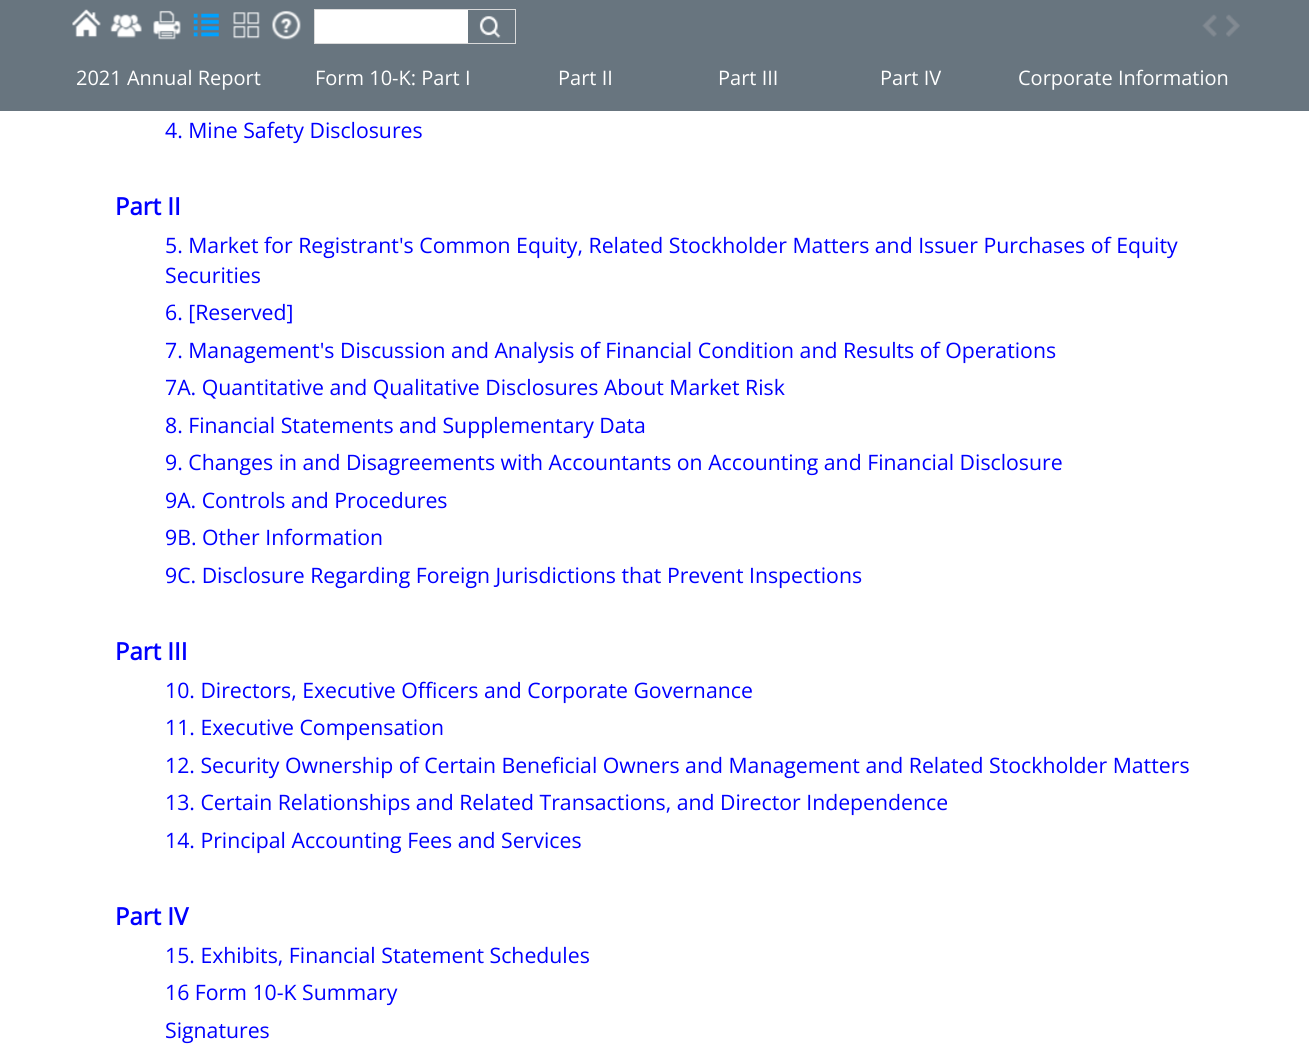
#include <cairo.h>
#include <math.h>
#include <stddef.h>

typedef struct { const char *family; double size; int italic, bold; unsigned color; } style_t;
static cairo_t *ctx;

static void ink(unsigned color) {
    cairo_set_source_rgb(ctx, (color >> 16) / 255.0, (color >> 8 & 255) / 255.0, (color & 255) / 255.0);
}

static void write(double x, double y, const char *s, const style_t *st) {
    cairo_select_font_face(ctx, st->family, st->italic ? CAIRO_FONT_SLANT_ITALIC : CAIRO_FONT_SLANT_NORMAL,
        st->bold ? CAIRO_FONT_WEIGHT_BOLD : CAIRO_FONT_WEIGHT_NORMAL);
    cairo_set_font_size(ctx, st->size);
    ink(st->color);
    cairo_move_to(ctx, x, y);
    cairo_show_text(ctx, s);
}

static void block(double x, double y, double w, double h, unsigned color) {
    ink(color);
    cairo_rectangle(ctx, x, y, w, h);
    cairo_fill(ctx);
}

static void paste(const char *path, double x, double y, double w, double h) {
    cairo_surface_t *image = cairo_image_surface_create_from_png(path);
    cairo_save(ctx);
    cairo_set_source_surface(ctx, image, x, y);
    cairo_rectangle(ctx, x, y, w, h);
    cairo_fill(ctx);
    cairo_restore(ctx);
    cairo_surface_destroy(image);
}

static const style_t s1 = {"Open Sans", 20, 0, 0, 0xffffff};
static const style_t s2 = {"Open Sans", 21.25, 0, 0, 0x0000ff};
static const style_t s3 = {"Open Sans", 24, 0, 1, 0x0000ff};

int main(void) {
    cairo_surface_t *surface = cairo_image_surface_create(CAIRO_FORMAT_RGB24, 1309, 1064);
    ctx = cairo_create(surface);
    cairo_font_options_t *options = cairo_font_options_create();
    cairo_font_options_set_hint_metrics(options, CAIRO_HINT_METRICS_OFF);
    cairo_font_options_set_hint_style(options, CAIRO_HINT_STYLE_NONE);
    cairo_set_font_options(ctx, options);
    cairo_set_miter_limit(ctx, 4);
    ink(0xffffff);
    cairo_paint(ctx);
    block(0, 0, 1309, 111, 0x68757f);
    paste("pic1.png", 72, 9, 29, 29);
    paste("pic2.png", 110, 14, 32, 24);
    paste("pic3.png", 153, 10, 28, 30);
    paste("pic4.png", 193, 13, 26, 24);
    paste("pic5.png", 233, 12, 27, 27);
    paste("pic6.png", 271, 10, 30, 30);
    cairo_rectangle(ctx, 314.5, 9.5, 201, 34);
    ink(0xdadada);
    cairo_set_line_width(ctx, 1);
    cairo_stroke(ctx);
    block(315, 10, 153, 33, 0xffffff);
    paste("pic7.png", 479, 16, 22, 22);
    paste("pic8.png", 1202, 14, 15, 23);
    paste("pic9.png", 1226, 14, 14, 23);
    write(76, 85, "2021 Annual Report", &s1);
    write(315, 85, "Form 10-K: Part I", &s1);
    write(558, 85, "Part II", &s1);
    write(718, 85, "Part III", &s1);
    write(880, 85, "Part IV", &s1);
    write(1018, 85, "Corporate Information", &s1);
    write(165, 138, "4. Mine Safety Disclosures", &s2);
    write(115, 215, "Part II", &s3);
    write(165, 253, "5. Market for Registrant's Common Equity, Related Stockholder Matters and Issuer Purchases of Equity", &s2);
    write(165, 283, "Securities", &s2);
    write(165, 320, "6. [Reserved]", &s2);
    write(165, 358, "7. Management's Discussion and Analysis of Financial Condition and Results of Operations", &s2);
    write(165, 395, "7A. Quantitative and Qualitative Disclosures About Market Risk", &s2);
    write(165, 433, "8. Financial Statements and Supplementary Data", &s2);
    write(165, 470, "9. Changes in and Disagreements with Accountants on Accounting and Financial Disclosure", &s2);
    write(165, 508, "9A. Controls and Procedures", &s2);
    write(165, 545, "9B. Other Information", &s2);
    write(165, 583, "9C. Disclosure Regarding Foreign Jurisdictions that Prevent Inspections", &s2);
    write(115, 660, "Part III", &s3);
    write(165, 698, "10. Directors, Executive Officers and Corporate Governance", &s2);
    write(165, 735, "11. Executive Compensation", &s2);
    write(165, 773, "12. Security Ownership of Certain Beneficial Owners and Management and Related Stockholder Matters", &s2);
    write(165, 810, "13. Certain Relationships and Related Transactions, and Director Independence", &s2);
    write(165, 848, "14. Principal Accounting Fees and Services", &s2);
    write(115, 925, "Part IV", &s3);
    write(165, 963, "15. Exhibits, Financial Statement Schedules", &s2);
    write(165, 1000, "16 Form 10-K Summary", &s2);
    write(165, 1038, "Signatures", &s2);
    cairo_surface_write_to_png(surface, "screenshot.png");
    cairo_font_options_destroy(options);
    cairo_destroy(ctx);
    cairo_surface_destroy(surface);
    return 0;
}
